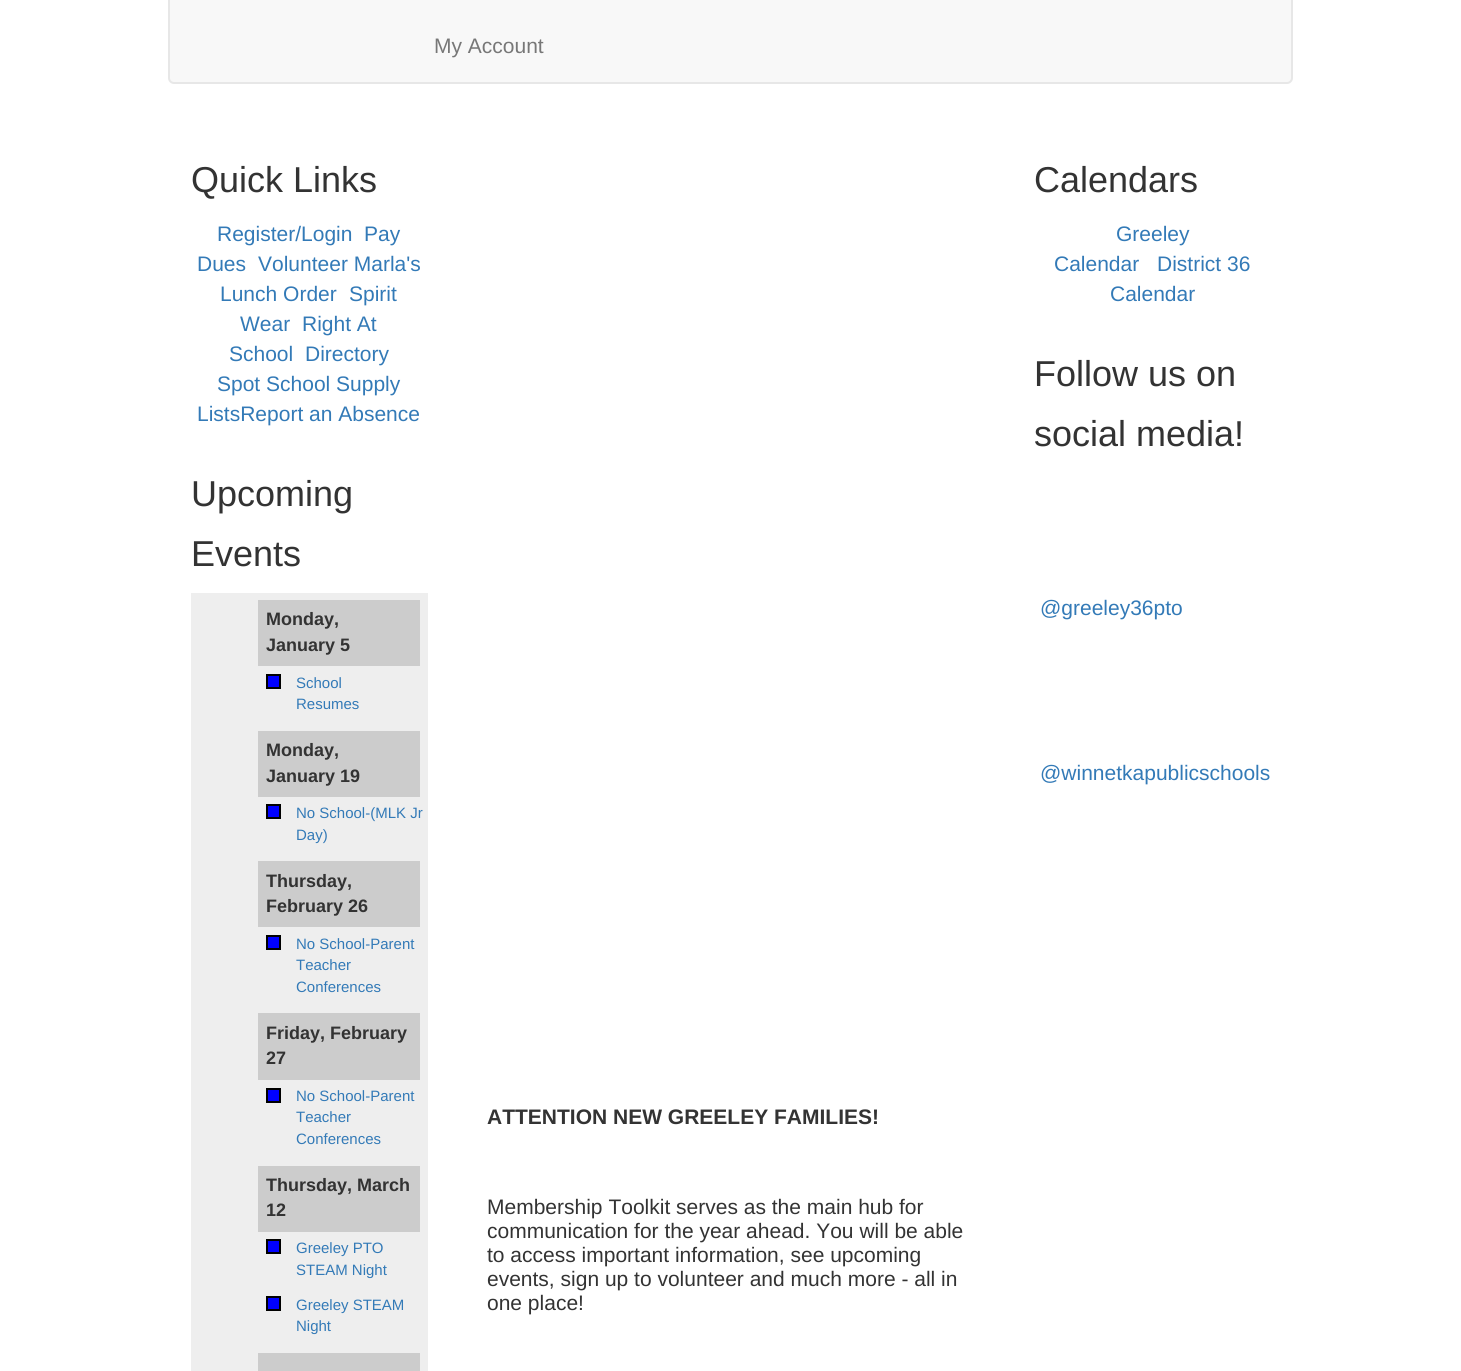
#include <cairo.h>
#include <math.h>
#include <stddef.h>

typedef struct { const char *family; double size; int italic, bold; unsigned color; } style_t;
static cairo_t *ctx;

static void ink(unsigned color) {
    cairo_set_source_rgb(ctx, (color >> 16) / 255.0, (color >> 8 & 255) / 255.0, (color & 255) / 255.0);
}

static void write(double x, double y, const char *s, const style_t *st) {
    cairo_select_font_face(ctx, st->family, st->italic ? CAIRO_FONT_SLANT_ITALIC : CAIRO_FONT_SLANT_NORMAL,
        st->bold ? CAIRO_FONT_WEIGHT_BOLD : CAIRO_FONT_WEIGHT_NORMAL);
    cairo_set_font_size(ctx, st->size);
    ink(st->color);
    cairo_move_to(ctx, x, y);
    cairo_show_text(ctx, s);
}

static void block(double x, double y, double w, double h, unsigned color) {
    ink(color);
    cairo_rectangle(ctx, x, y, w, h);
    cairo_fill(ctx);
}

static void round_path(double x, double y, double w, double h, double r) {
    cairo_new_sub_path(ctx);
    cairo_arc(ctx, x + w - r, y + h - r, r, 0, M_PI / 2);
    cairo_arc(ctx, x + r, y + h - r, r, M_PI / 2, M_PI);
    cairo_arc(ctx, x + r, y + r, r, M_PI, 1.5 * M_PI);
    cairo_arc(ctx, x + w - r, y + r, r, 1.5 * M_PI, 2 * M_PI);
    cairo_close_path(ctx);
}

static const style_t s1 = {"Liberation Sans", 21, 0, 0, 0x777777};
static const style_t s2 = {"Liberation Sans", 36, 0, 0, 0x333333};
static const style_t s3 = {"Liberation Sans", 21, 0, 0, 0x337ab7};
static const style_t s4 = {"Liberation Sans", 18, 0, 1, 0x333333};
static const style_t s5 = {"Liberation Sans", 15, 0, 0, 0x337ab7};
static const style_t s6 = {"Liberation Sans", 21, 0, 1, 0x333333};
static const style_t s7 = {"Liberation Sans", 21, 0, 0, 0x333333};

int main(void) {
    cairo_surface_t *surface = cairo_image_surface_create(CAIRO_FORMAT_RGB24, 1461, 1371);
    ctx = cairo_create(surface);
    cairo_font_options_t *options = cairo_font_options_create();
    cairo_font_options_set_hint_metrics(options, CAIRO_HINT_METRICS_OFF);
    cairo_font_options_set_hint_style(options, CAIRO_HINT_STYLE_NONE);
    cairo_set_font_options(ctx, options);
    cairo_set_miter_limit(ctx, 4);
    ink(0xffffff);
    cairo_paint(ctx);
    ink(0xf8f8f8);
    round_path(169, -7, 1123, 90, 5);
    cairo_fill_preserve(ctx);
    ink(0xe7e7e7);
    cairo_stroke(ctx);
    write(434, 53, "My Account", &s1);
    write(191, 192, "Quick Links", &s2);
    write(217, 241, "Register/Login", &s3);
    write(364, 241, "Pay", &s3);
    write(197, 271, "Dues", &s3);
    write(258, 271, "Volunteer Marla's", &s3);
    write(220, 301, "Lunch Order", &s3);
    write(349, 301, "Spirit", &s3);
    write(240, 331, "Wear", &s3);
    write(302, 331, "Right At", &s3);
    write(229, 361, "School", &s3);
    write(305, 361, "Directory", &s3);
    write(217, 391, "Spot School Supply", &s3);
    write(197, 421, "ListsReport an Absence", &s3);
    write(191, 506, "Upcoming", &s2);
    write(191, 566, "Events", &s2);
    block(191, 593, 237, 778, 0xeeeeee);
    block(258, 600, 162, 66, 0xcccccc);
    write(266, 625, "Monday,", &s4);
    write(266, 651, "January 5", &s4);
    ink(0x0000ff);
    cairo_rectangle(ctx, 267, 675, 13, 13);
    cairo_fill_preserve(ctx);
    ink(0x000000);
    cairo_stroke(ctx);
    write(296, 688, "School", &s5);
    write(296, 709, "Resumes", &s5);
    block(258, 731, 162, 66, 0xcccccc);
    write(266, 756, "Monday,", &s4);
    write(266, 782, "January 19", &s4);
    ink(0x0000ff);
    cairo_rectangle(ctx, 267, 805, 13, 13);
    cairo_fill_preserve(ctx);
    ink(0x000000);
    cairo_stroke(ctx);
    write(296, 818, "No School-(MLK Jr", &s5);
    write(296, 840, "Day)", &s5);
    block(258, 861, 162, 66, 0xcccccc);
    write(266, 887, "Thursday,", &s4);
    write(266, 912, "February 26", &s4);
    ink(0x0000ff);
    cairo_rectangle(ctx, 267, 936, 13, 13);
    cairo_fill_preserve(ctx);
    ink(0x000000);
    cairo_stroke(ctx);
    write(296, 949, "No School-Parent", &s5);
    write(296, 970, "Teacher", &s5);
    write(296, 992, "Conferences", &s5);
    block(258, 1013, 162, 67, 0xcccccc);
    write(266, 1039, "Friday, February", &s4);
    write(266, 1064, "27", &s4);
    ink(0x0000ff);
    cairo_rectangle(ctx, 267, 1089, 13, 13);
    cairo_fill_preserve(ctx);
    ink(0x000000);
    cairo_stroke(ctx);
    write(296, 1101, "No School-Parent", &s5);
    write(296, 1122, "Teacher", &s5);
    write(296, 1144, "Conferences", &s5);
    block(258, 1166, 162, 66, 0xcccccc);
    write(266, 1191, "Thursday, March", &s4);
    write(266, 1216, "12", &s4);
    ink(0x0000ff);
    cairo_rectangle(ctx, 267, 1240, 13, 13);
    cairo_fill_preserve(ctx);
    ink(0x000000);
    cairo_stroke(ctx);
    write(296, 1253, "Greeley PTO", &s5);
    write(296, 1275, "STEAM Night", &s5);
    ink(0x0000ff);
    cairo_rectangle(ctx, 267, 1297, 13, 13);
    cairo_fill_preserve(ctx);
    ink(0x000000);
    cairo_stroke(ctx);
    write(296, 1310, "Greeley STEAM", &s5);
    write(296, 1331, "Night", &s5);
    block(258, 1353, 162, 18, 0xcccccc);
    write(1034, 192, "Calendars", &s2);
    write(1116, 241, "Greeley", &s3);
    write(1054, 271, "Calendar", &s3);
    write(1157, 271, "District 36", &s3);
    write(1110, 301, "Calendar", &s3);
    write(1034, 386, "Follow us on", &s2);
    write(1034, 446, "social media!", &s2);
    write(1040, 615, "@greeley36pto", &s3);
    write(1040, 780, "@winnetkapublicschools", &s3);
    write(487, 1124, "ATTENTION NEW GREELEY FAMILIES!", &s6);
    write(487, 1214, "Membership Toolkit serves as the main hub for", &s7);
    write(487, 1238, "communication for the year ahead. You will be able", &s7);
    write(487, 1262, "to access important information, see upcoming", &s7);
    write(487, 1286, "events, sign up to volunteer and much more - all in", &s7);
    write(487, 1310, "one place!", &s7);
    cairo_surface_write_to_png(surface, "screenshot.png");
    cairo_font_options_destroy(options);
    cairo_destroy(ctx);
    cairo_surface_destroy(surface);
    return 0;
}
